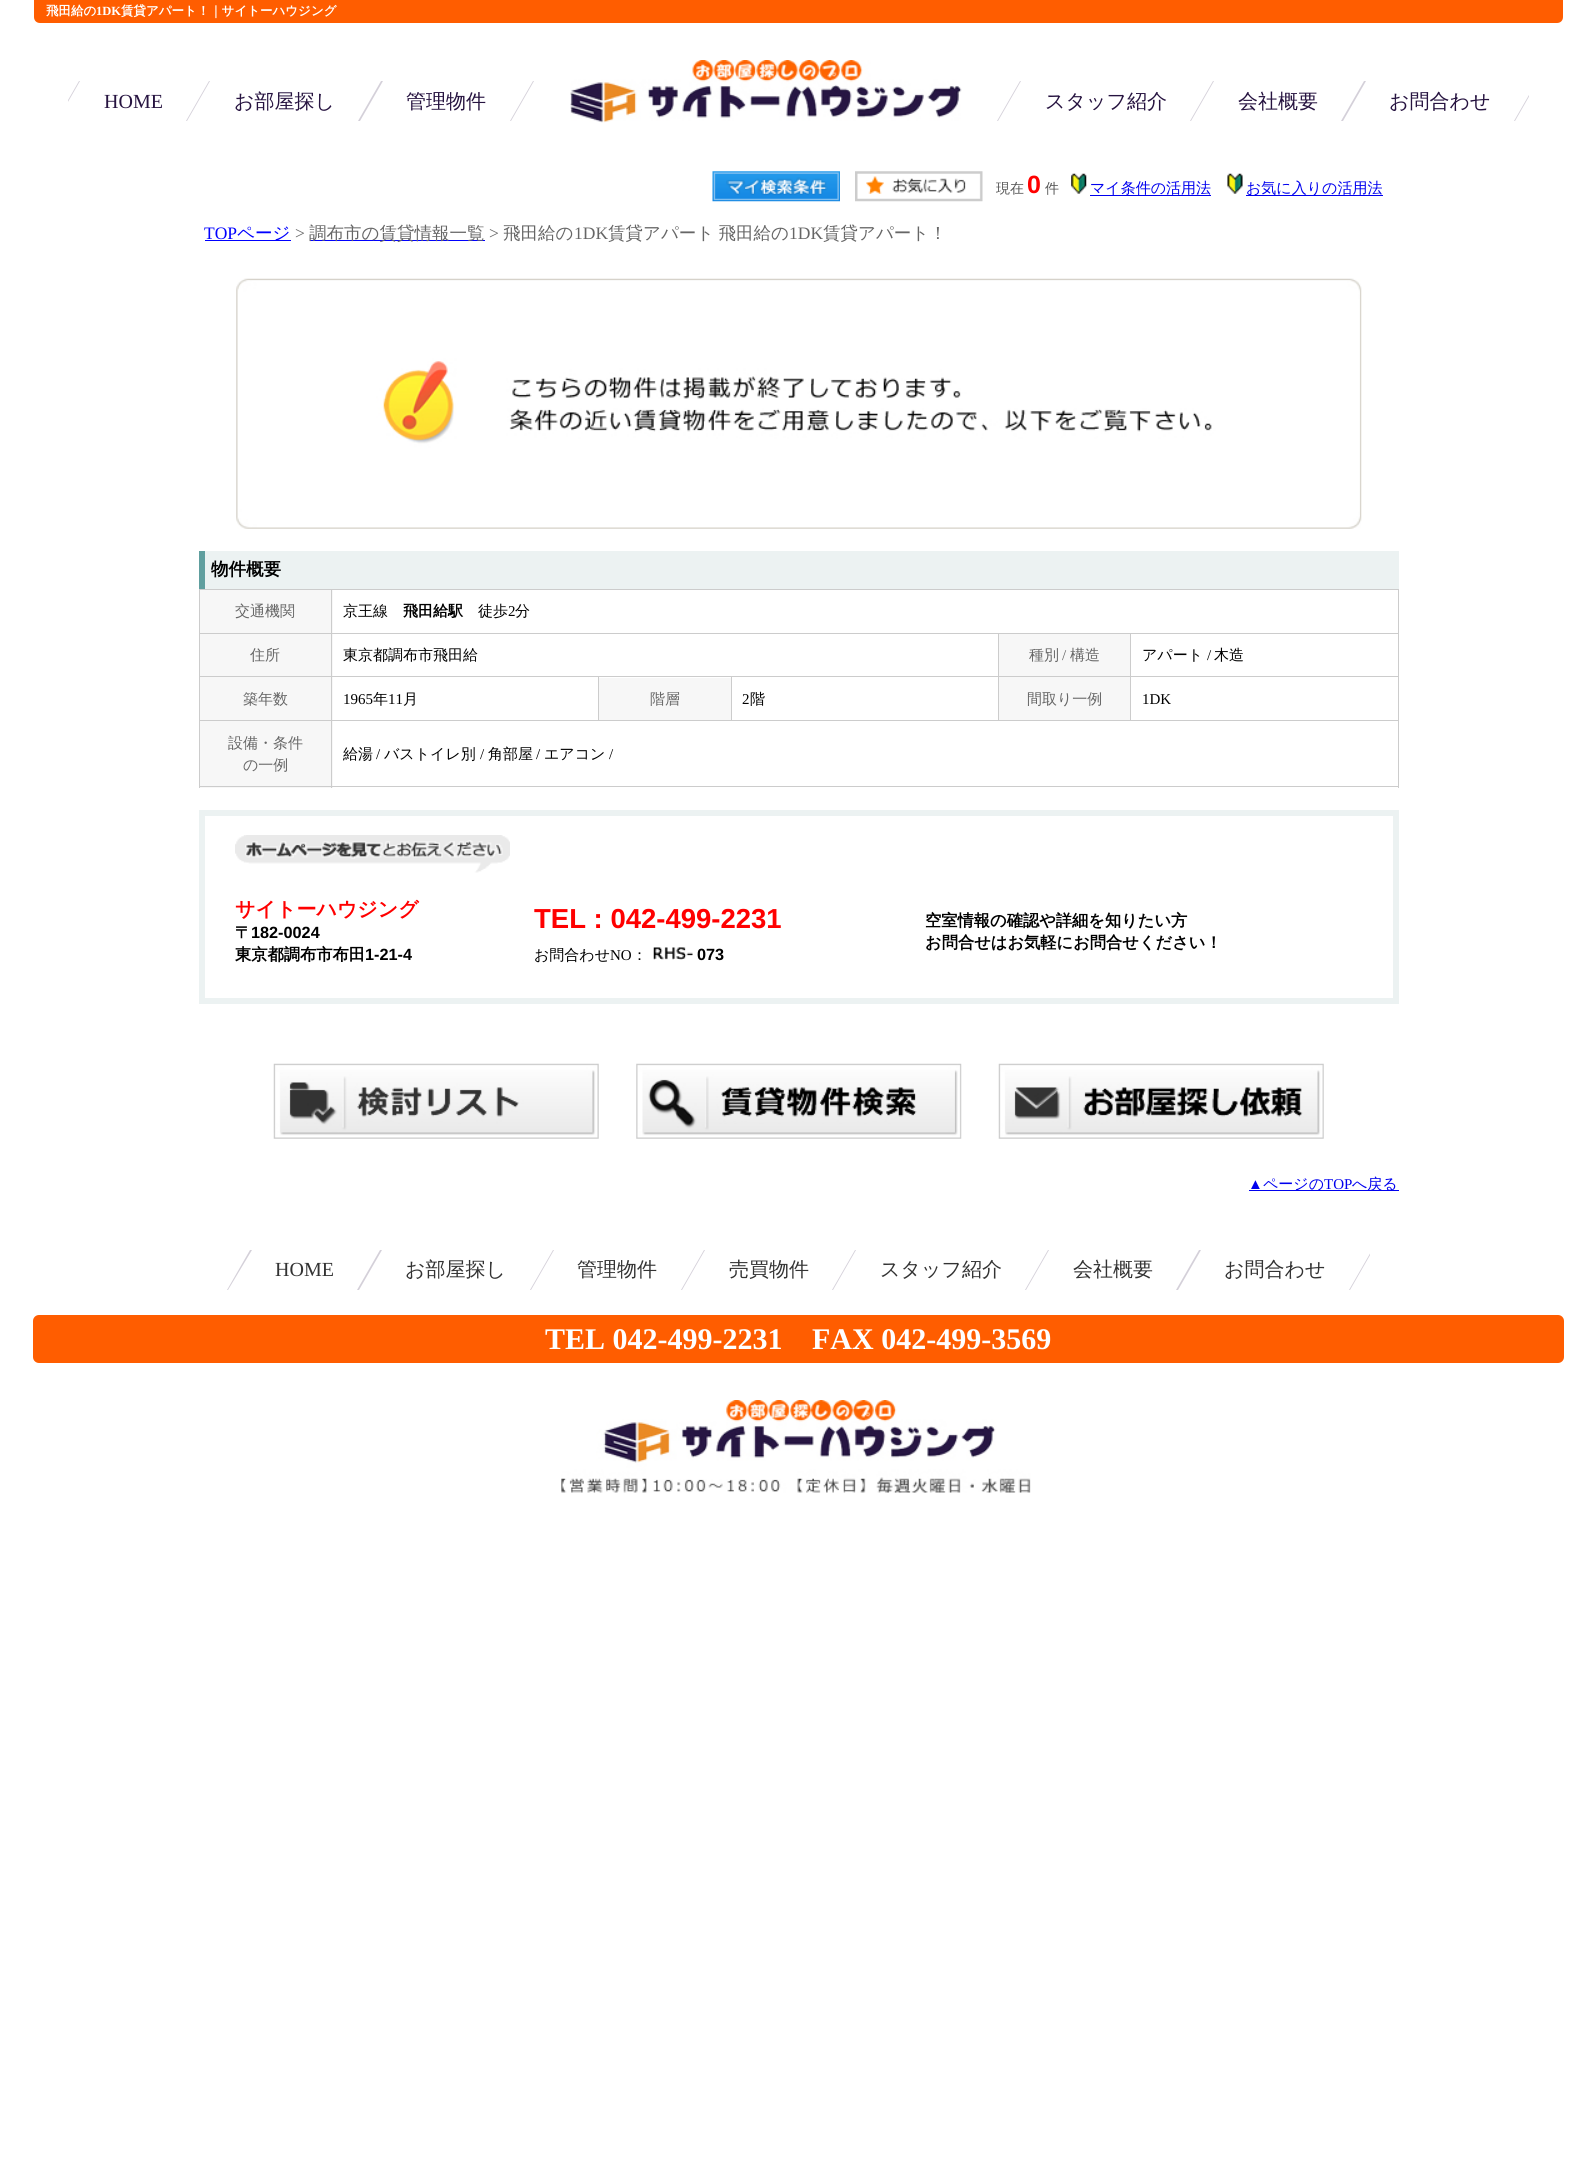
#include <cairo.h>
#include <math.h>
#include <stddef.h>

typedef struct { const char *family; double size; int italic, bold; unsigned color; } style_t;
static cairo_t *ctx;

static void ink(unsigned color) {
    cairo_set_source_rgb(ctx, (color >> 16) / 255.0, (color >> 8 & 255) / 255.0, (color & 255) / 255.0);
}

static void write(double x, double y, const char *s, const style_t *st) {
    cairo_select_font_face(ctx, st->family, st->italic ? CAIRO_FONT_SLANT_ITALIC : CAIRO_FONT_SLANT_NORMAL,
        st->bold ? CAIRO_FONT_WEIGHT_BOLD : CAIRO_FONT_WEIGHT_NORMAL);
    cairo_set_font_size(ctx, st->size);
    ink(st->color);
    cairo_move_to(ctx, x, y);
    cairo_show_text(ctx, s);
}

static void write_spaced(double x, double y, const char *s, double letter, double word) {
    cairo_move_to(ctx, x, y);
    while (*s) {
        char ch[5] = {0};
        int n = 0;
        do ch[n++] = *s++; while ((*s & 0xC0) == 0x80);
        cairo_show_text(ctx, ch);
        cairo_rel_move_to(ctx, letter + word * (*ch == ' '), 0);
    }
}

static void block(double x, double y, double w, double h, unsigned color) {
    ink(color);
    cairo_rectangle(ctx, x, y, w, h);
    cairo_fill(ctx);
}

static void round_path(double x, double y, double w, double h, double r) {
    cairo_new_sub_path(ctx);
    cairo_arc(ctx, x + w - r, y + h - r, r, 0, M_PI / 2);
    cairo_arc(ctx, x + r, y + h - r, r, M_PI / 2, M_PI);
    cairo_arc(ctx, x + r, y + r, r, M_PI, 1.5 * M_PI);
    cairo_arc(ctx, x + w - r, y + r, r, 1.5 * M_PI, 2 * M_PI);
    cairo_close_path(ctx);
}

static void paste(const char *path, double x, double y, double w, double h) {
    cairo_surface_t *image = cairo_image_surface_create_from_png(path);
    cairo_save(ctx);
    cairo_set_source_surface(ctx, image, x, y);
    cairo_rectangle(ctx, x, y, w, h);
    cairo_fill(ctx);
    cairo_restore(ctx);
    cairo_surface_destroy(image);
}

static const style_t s1 = {"WenQuanYi Zen Hei", 12.5, 0, 1, 0xffffff};
static const style_t s2 = {"Liberation Serif", 12.5, 0, 1, 0xffffff};
static const style_t s3 = {"Liberation Serif", 20, 0, 0, 0x261340};
static const style_t s4 = {"WenQuanYi Zen Hei Medium", 20, 0, 0, 0x261340};
static const style_t s5 = {"WenQuanYi Zen Hei Medium", 14, 0, 0, 0x555555};
static const style_t s6 = {"Liberation Sans", 25, 0, 1, 0xff0000};
static const style_t s7 = {"WenQuanYi Zen Hei Medium", 15, 0, 0, 0x0000ee};
static const style_t s8 = {"Liberation Serif", 17.5, 0, 0, 0x0000ff};
static const style_t s9 = {"WenQuanYi Zen Hei Medium", 17.5, 0, 0, 0x0000ff};
static const style_t s10 = {"Liberation Serif", 17.5, 0, 0, 0x666666};
static const style_t s11 = {"WenQuanYi Zen Hei Medium", 17.5, 0, 0, 0x666666};
static const style_t s12 = {"WenQuanYi Zen Hei", 17.5, 0, 1, 0x000000};
static const style_t s13 = {"WenQuanYi Zen Hei Medium", 15, 0, 0, 0x666666};
static const style_t s14 = {"WenQuanYi Zen Hei Medium", 15, 0, 0, 0x000000};
static const style_t s15 = {"WenQuanYi Zen Hei", 15, 0, 1, 0x000000};
static const style_t s16 = {"Liberation Serif", 15, 0, 0, 0x000000};
static const style_t s17 = {"Liberation Serif", 15, 0, 0, 0x666666};
static const style_t s18 = {"WenQuanYi Zen Hei", 20, 0, 1, 0xff0000};
static const style_t s19 = {"WenQuanYi Zen Hei", 16.25, 0, 1, 0x000000};
static const style_t s20 = {"Liberation Sans", 16.25, 0, 1, 0x000000};
static const style_t s21 = {"Liberation Sans", 27.5, 0, 1, 0xff0000};
static const style_t s22 = {"Liberation Serif", 15, 0, 0, 0x0000ee};
static const style_t s23 = {"Liberation Serif", 20, 0, 0, 0x333333};
static const style_t s24 = {"WenQuanYi Zen Hei Medium", 20, 0, 0, 0x333333};
static const style_t s25 = {"Liberation Serif", 30, 0, 1, 0xffffff};

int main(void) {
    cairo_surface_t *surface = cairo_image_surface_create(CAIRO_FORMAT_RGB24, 1596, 2178);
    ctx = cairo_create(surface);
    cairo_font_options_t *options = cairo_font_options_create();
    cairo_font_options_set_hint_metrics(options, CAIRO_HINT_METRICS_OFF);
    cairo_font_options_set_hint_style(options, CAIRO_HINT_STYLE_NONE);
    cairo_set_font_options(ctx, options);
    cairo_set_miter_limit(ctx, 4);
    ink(0xffffff);
    cairo_paint(ctx);
    ink(0xff5d00);
    cairo_new_path(ctx);
    cairo_move_to(ctx, 34, 0);
    cairo_line_to(ctx, 1563, 0);
    cairo_line_to(ctx, 1563, 17);
    cairo_curve_to(ctx, 1563, 20.5, 1560.5, 23, 1557, 23);
    cairo_line_to(ctx, 40, 23);
    cairo_curve_to(ctx, 36.5, 23, 34, 20.5, 34, 17);
    cairo_close_path(ctx);
    cairo_fill(ctx);
    write(46, 15, "飛田給の", &s1);
    write(96, 15, "1DK", &s2);
    write(121, 15, "賃貸アパート！｜サイトーハウジング", &s1);
    ink(0xd4d0d9);
    cairo_new_path(ctx);
    cairo_move_to(ctx, 209, 81);
    cairo_line_to(ctx, 210, 81);
    cairo_line_to(ctx, 187, 121);
    cairo_line_to(ctx, 186, 121);
    cairo_close_path(ctx);
    cairo_fill(ctx);
    cairo_save(ctx);
    cairo_rectangle(ctx, 68, 60, 1461, 63);
    cairo_clip(ctx);
    cairo_new_path(ctx);
    cairo_move_to(ctx, 79, 81);
    cairo_line_to(ctx, 80, 81);
    cairo_line_to(ctx, 57, 121);
    cairo_line_to(ctx, 56, 121);
    cairo_close_path(ctx);
    cairo_fill(ctx);
    cairo_restore(ctx);
    write(104, 108, "HOME", &s3);
    ink(0xd4d0d9);
    cairo_new_path(ctx);
    cairo_move_to(ctx, 381, 81);
    cairo_line_to(ctx, 383, 81);
    cairo_line_to(ctx, 360, 121);
    cairo_line_to(ctx, 358, 121);
    cairo_close_path(ctx);
    cairo_fill(ctx);
    write(234, 108, "お部屋探し", &s4);
    ink(0xd4d0d9);
    cairo_new_path(ctx);
    cairo_move_to(ctx, 533, 81);
    cairo_line_to(ctx, 534, 81);
    cairo_line_to(ctx, 511, 121);
    cairo_line_to(ctx, 510, 121);
    cairo_close_path(ctx);
    cairo_fill(ctx);
    write(406, 108, "管理物件", &s4);
    paste("pic1.png", 570, 60, 392, 63);
    ink(0xd4d0d9);
    cairo_new_path(ctx);
    cairo_move_to(ctx, 1213, 81);
    cairo_line_to(ctx, 1214, 81);
    cairo_line_to(ctx, 1191, 121);
    cairo_line_to(ctx, 1190, 121);
    cairo_close_path(ctx);
    cairo_fill(ctx);
    cairo_new_path(ctx);
    cairo_move_to(ctx, 1020, 81);
    cairo_line_to(ctx, 1021, 81);
    cairo_line_to(ctx, 998, 121);
    cairo_line_to(ctx, 997, 121);
    cairo_close_path(ctx);
    cairo_fill(ctx);
    write(1045, 108, "スタッフ紹介", &s4);
    ink(0xd4d0d9);
    cairo_new_path(ctx);
    cairo_move_to(ctx, 1364, 81);
    cairo_line_to(ctx, 1366, 81);
    cairo_line_to(ctx, 1343, 121);
    cairo_line_to(ctx, 1341, 121);
    cairo_close_path(ctx);
    cairo_fill(ctx);
    write(1238, 108, "会社概要", &s4);
    cairo_save(ctx);
    cairo_rectangle(ctx, 68, 60, 1461, 63);
    cairo_clip(ctx);
    ink(0xd4d0d9);
    cairo_new_path(ctx);
    cairo_move_to(ctx, 1537, 81);
    cairo_line_to(ctx, 1538, 81);
    cairo_line_to(ctx, 1515, 121);
    cairo_line_to(ctx, 1514, 121);
    cairo_close_path(ctx);
    cairo_fill(ctx);
    cairo_restore(ctx);
    write(1389, 108, "お問合わせ", &s4);
    paste("pic2.png", 712, 171, 128, 31);
    paste("pic3.png", 855, 171, 128, 31);
    write(996, 193, "現在", &s5);
    write(1027, 193, "0", &s6);
    write(1045, 193, "件", &s5);
    paste("pic4.png", 1071, 173, 16, 21);
    write(1090, 193, "マイ条件の活用法", &s7);
    block(1090, 195, 121, 1, 0x0000ee);
    paste("pic5.png", 1227, 173, 16, 21);
    block(1246, 195, 137, 1, 0x0000ee);
    write(1246, 193, "お気に入りの活用法", &s7);
    write(204, 239, "TOP", &s8);
    block(205, 240, 86, 1, 0x0000ff);
    write(237, 239, "ページ", &s9);
    write(295, 239, ">", &s10);
    block(310, 240, 175, 1, 0x0000ff);
    write(309, 239, "調布市の賃貸情報一覧", &s11);
    write(489, 239, ">", &s10);
    write(503, 239, "飛田給の", &s11);
    write(574, 239, "1DK", &s10);
    cairo_select_font_face(ctx, "WenQuanYi Zen Hei Medium", CAIRO_FONT_SLANT_NORMAL, CAIRO_FONT_WEIGHT_NORMAL);
    write_spaced(608, 239, "賃貸アパート 飛田給の", 0, -1);
    write(789, 239, "1DK", &s10);
    write(823, 239, "賃貸アパート！", &s11);
    paste("pic6.png", 236, 278, 1126, 251);
    block(205, 551, 1194, 38, 0xecf2f2);
    block(199, 551, 6, 38, 0x609f9f);
    write(211, 575, "物件概要", &s12);
    block(199, 589, 1200, 1, 0xcccccc);
    block(1398, 589, 1, 199, 0xcccccc);
    block(200, 721, 133, 67, 0xf7f7f7);
    block(199, 786, 1200, 1, 0xcccccc);
    block(199, 589, 1, 199, 0xcccccc);
    block(200, 590, 133, 43, 0xf7f7f7);
    write(235, 616, "交通機関", &s13);
    block(1130, 633, 269, 1, 0xcccccc);
    block(999, 634, 131, 86, 0xf7f7f7);
    block(1130, 676, 269, 1, 0xcccccc);
    block(331, 720, 1068, 1, 0xcccccc);
    block(1130, 676, 1, 45, 0xcccccc);
    block(998, 676, 133, 1, 0xcccccc);
    block(1130, 633, 1, 45, 0xcccccc);
    block(998, 633, 133, 1, 0xcccccc);
    block(998, 676, 1, 45, 0xcccccc);
    block(731, 676, 268, 1, 0xcccccc);
    block(998, 633, 1, 45, 0xcccccc);
    block(331, 633, 668, 1, 0xcccccc);
    block(200, 634, 133, 86, 0xf7f7f7);
    block(731, 676, 1, 45, 0xcccccc);
    block(598, 676, 135, 1, 0xcccccc);
    block(598, 676, 1, 45, 0xcccccc);
    block(331, 676, 268, 1, 0xcccccc);
    block(331, 720, 1, 68, 0xcccccc);
    block(199, 720, 134, 1, 0xcccccc);
    block(331, 676, 1, 45, 0xcccccc);
    block(199, 676, 134, 1, 0xcccccc);
    block(331, 633, 1, 45, 0xcccccc);
    block(199, 633, 134, 1, 0xcccccc);
    block(331, 589, 1, 45, 0xcccccc);
    write(343, 616, "京王線", &s14);
    write(403, 616, "飛田給駅", &s15);
    write(478, 616, "徒歩", &s14);
    write(508, 616, "2", &s16);
    write(515, 616, "分", &s14);
    write(250, 660, "住所", &s13);
    write(343, 660, "東京都調布市飛田給", &s14);
    write(1029, 660, "種別", &s13);
    write(1062, 660, "/", &s17);
    write(1070, 660, "構造", &s13);
    write(1142, 660, "アパート", &s14);
    write(1207, 660, "/", &s16);
    write(1214, 660, "木造", &s14);
    write(243, 704, "築年数", &s13);
    write(343, 704, "1965", &s16);
    write(373, 704, "年", &s14);
    write(388, 704, "11", &s16);
    write(403, 704, "月", &s14);
    block(599, 678, 132, 42, 0xf7f7f7);
    write(650, 704, "階層", &s13);
    write(742, 704, "2", &s16);
    write(750, 704, "階", &s14);
    write(1027, 704, "間取り一例", &s13);
    write(1142, 704, "1DK", &s16);
    write(228, 748, "設備・条件", &s13);
    write(243, 770, "の一例", &s13);
    write(343, 759, "給湯", &s14);
    write(376, 759, "/", &s16);
    write(384, 759, "バストイレ別", &s14);
    write(480, 759, "/", &s16);
    write(488, 759, "角部屋", &s14);
    write(536, 759, "/", &s16);
    write(544, 759, "エアコン", &s14);
    write(609, 759, "/", &s16);
    cairo_rectangle(ctx, 202, 813, 1194, 188);
    ink(0xecf2f2);
    cairo_set_line_width(ctx, 6);
    cairo_stroke(ctx);
    paste("pic7.png", 235, 835, 275, 38);
    write(235, 916, "サイトーハウジング", &s18);
    write(235, 938, "〒", &s19);
    write(251, 938, "182-0024", &s20);
    write(235, 960, "東京都調布市布田", &s19);
    write(365, 960, "1-21-4", &s20);
    write(534, 928, "TEL : 042-499-2231", &s21);
    write(534, 960, "お問合わせ", &s14);
    write(610, 960, "NO", &s16);
    write(632, 960, "：", &s14);
    paste("pic8.png", 653, 947, 40, 13);
    write(697, 960, "073", &s20);
    write(925, 926, "空室情報の確認や詳細を知りたい方", &s19);
    write(925, 948, "お問合せはお気軽にお問合せください！", &s19);
    paste("pic9.png", 273, 1063, 326, 76);
    paste("pic10.png", 636, 1063, 326, 76);
    paste("pic11.png", 998, 1063, 326, 76);
    write(1248, 1189, "▲", &s22);
    block(1249, 1190, 150, 1, 0x0000ee);
    write(1263, 1189, "ページの", &s7);
    write(1324, 1189, "TOP", &s22);
    write(1352, 1189, "へ戻る", &s7);
    ink(0xd4d0d9);
    cairo_new_path(ctx);
    cairo_move_to(ctx, 380, 1250);
    cairo_line_to(ctx, 382, 1250);
    cairo_line_to(ctx, 359, 1290);
    cairo_line_to(ctx, 357, 1290);
    cairo_close_path(ctx);
    cairo_fill(ctx);
    cairo_new_path(ctx);
    cairo_move_to(ctx, 250, 1250);
    cairo_line_to(ctx, 252, 1250);
    cairo_line_to(ctx, 228, 1290);
    cairo_line_to(ctx, 227, 1290);
    cairo_close_path(ctx);
    cairo_fill(ctx);
    write(275, 1276, "HOME", &s23);
    ink(0xd4d0d9);
    cairo_new_path(ctx);
    cairo_move_to(ctx, 553, 1250);
    cairo_line_to(ctx, 554, 1250);
    cairo_line_to(ctx, 531, 1290);
    cairo_line_to(ctx, 530, 1290);
    cairo_close_path(ctx);
    cairo_fill(ctx);
    write(405, 1276, "お部屋探し", &s24);
    ink(0xd4d0d9);
    cairo_new_path(ctx);
    cairo_move_to(ctx, 704, 1250);
    cairo_line_to(ctx, 705, 1250);
    cairo_line_to(ctx, 682, 1290);
    cairo_line_to(ctx, 681, 1290);
    cairo_close_path(ctx);
    cairo_fill(ctx);
    write(577, 1276, "管理物件", &s24);
    ink(0xd4d0d9);
    cairo_new_path(ctx);
    cairo_move_to(ctx, 855, 1250);
    cairo_line_to(ctx, 856, 1250);
    cairo_line_to(ctx, 833, 1290);
    cairo_line_to(ctx, 832, 1290);
    cairo_close_path(ctx);
    cairo_fill(ctx);
    write(729, 1276, "売買物件", &s24);
    ink(0xd4d0d9);
    cairo_new_path(ctx);
    cairo_move_to(ctx, 1048, 1250);
    cairo_line_to(ctx, 1049, 1250);
    cairo_line_to(ctx, 1026, 1290);
    cairo_line_to(ctx, 1025, 1290);
    cairo_close_path(ctx);
    cairo_fill(ctx);
    write(880, 1276, "スタッフ紹介", &s24);
    ink(0xd4d0d9);
    cairo_new_path(ctx);
    cairo_move_to(ctx, 1199, 1250);
    cairo_line_to(ctx, 1201, 1250);
    cairo_line_to(ctx, 1178, 1290);
    cairo_line_to(ctx, 1176, 1290);
    cairo_close_path(ctx);
    cairo_fill(ctx);
    write(1073, 1276, "会社概要", &s24);
    cairo_save(ctx);
    cairo_rectangle(ctx, 226, 1250, 1144, 40);
    cairo_clip(ctx);
    ink(0xd4d0d9);
    cairo_new_path(ctx);
    cairo_move_to(ctx, 1372, 1250);
    cairo_line_to(ctx, 1373, 1250);
    cairo_line_to(ctx, 1350, 1290);
    cairo_line_to(ctx, 1349, 1290);
    cairo_close_path(ctx);
    cairo_fill(ctx);
    cairo_restore(ctx);
    write(1224, 1276, "お問合わせ", &s24);
    ink(0xff5d00);
    round_path(33, 1315, 1531, 48, 6);
    cairo_fill(ctx);
    write(545, 1349, "TEL 042-499-2231", &s25);
    write(812, 1349, "FAX 042-499-3569", &s25);
    paste("pic12.png", 561, 1400, 470, 93);
    cairo_surface_write_to_png(surface, "screenshot.png");
    cairo_font_options_destroy(options);
    cairo_destroy(ctx);
    cairo_surface_destroy(surface);
    return 0;
}
